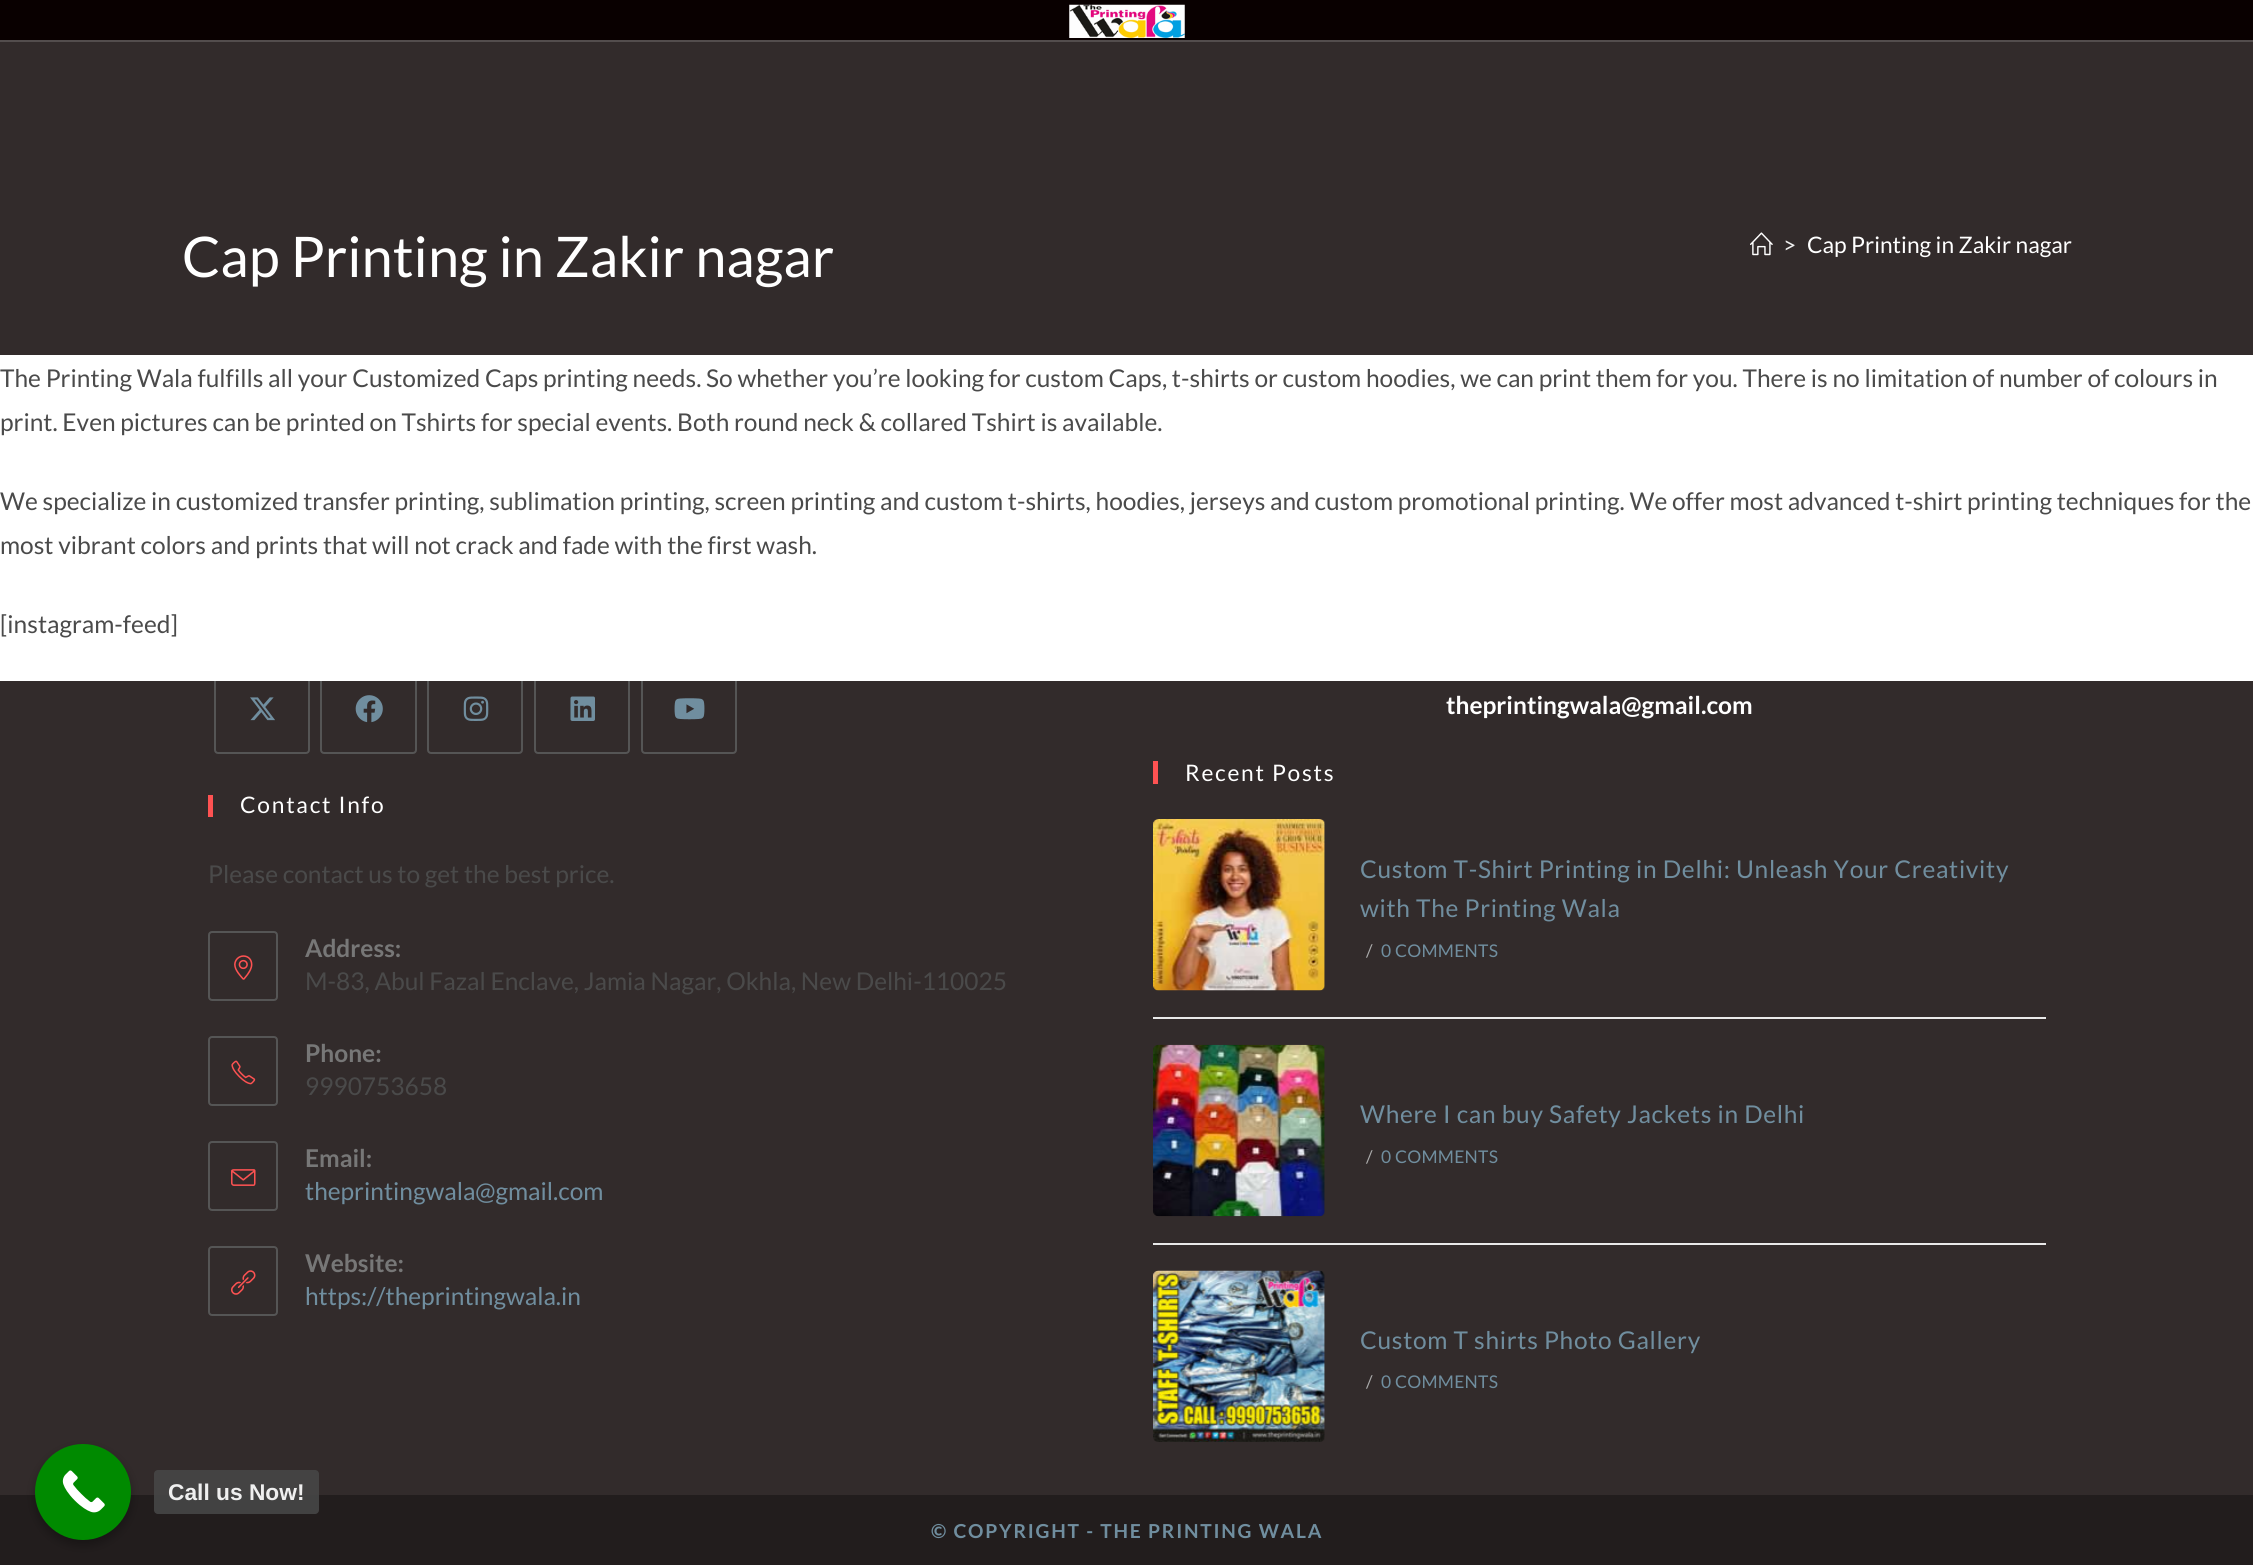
#include <cairo.h>
#include <math.h>
#include <stddef.h>

typedef struct { const char *family; double size; int italic, bold; unsigned color; } style_t;
static cairo_t *ctx;

static void ink(unsigned color) {
    cairo_set_source_rgb(ctx, (color >> 16) / 255.0, (color >> 8 & 255) / 255.0, (color & 255) / 255.0);
}

static void write(double x, double y, const char *s, const style_t *st) {
    cairo_select_font_face(ctx, st->family, st->italic ? CAIRO_FONT_SLANT_ITALIC : CAIRO_FONT_SLANT_NORMAL,
        st->bold ? CAIRO_FONT_WEIGHT_BOLD : CAIRO_FONT_WEIGHT_NORMAL);
    cairo_set_font_size(ctx, st->size);
    ink(st->color);
    cairo_move_to(ctx, x, y);
    cairo_show_text(ctx, s);
}

static void write_spaced(double x, double y, const char *s, double letter, double word) {
    cairo_move_to(ctx, x, y);
    while (*s) {
        char ch[5] = {0};
        int n = 0;
        do ch[n++] = *s++; while ((*s & 0xC0) == 0x80);
        cairo_show_text(ctx, ch);
        cairo_rel_move_to(ctx, letter + word * (*ch == ' '), 0);
    }
}

static void block(double x, double y, double w, double h, unsigned color) {
    ink(color);
    cairo_rectangle(ctx, x, y, w, h);
    cairo_fill(ctx);
}

static void round_path(double x, double y, double w, double h, double r) {
    cairo_new_sub_path(ctx);
    cairo_arc(ctx, x + w - r, y + h - r, r, 0, M_PI / 2);
    cairo_arc(ctx, x + r, y + h - r, r, M_PI / 2, M_PI);
    cairo_arc(ctx, x + r, y + r, r, M_PI, 1.5 * M_PI);
    cairo_arc(ctx, x + w - r, y + r, r, 1.5 * M_PI, 2 * M_PI);
    cairo_close_path(ctx);
}

static void blur_box(double x, double y, double w, double h, double r, double blur, double alpha) {
    cairo_push_group_with_content(ctx, CAIRO_CONTENT_ALPHA);
    cairo_set_operator(ctx, CAIRO_OPERATOR_SOURCE);
    for (int i = 15; i >= -15 && fmin(w, h) + blur * i / 3 > 0; i -= 2) {
        double e = blur * i / 6;
        cairo_set_source_rgba(ctx, 0, 0, 0, alpha * erfc((i - 1) / 8.5) / 2);
        round_path(x - e, y - e, w + 2 * e, h + 2 * e, fmax(0, fmin(r + e + blur * .6, fmin(w, h) / 2 + e)));
        cairo_fill(ctx);
    }
    cairo_pattern_t *soft = cairo_pop_group(ctx);
    cairo_mask(ctx, soft);
    cairo_pattern_destroy(soft);
}

static void paste(const char *path, double x, double y, double w, double h) {
    cairo_surface_t *image = cairo_image_surface_create_from_png(path);
    cairo_save(ctx);
    cairo_set_source_surface(ctx, image, x, y);
    cairo_rectangle(ctx, x, y, w, h);
    cairo_fill(ctx);
    cairo_restore(ctx);
    cairo_surface_destroy(image);
}

static const style_t s1 = {"Lato", 56, 0, 0, 0xffffff};
static const style_t s2 = {"Lato", 22.75, 0, 0, 0xefefef};
static const style_t s3 = {"Lato", 22.75, 0, 0, 0xffffff};
static const style_t s4 = {"Lato", 24.5, 0, 0, 0x4a4a4a};
static const style_t s5 = {"Lato", 24.5, 0, 1, 0x777777};
static const style_t s6 = {"Lato", 24.5, 0, 0, 0x708e9f};
static const style_t s7 = {"Lato", 24.5, 0, 1, 0xffffff};
static const style_t s8 = {"Liberation Sans", 22.75, 0, 1, 0xefefef};

int main(void) {
    cairo_surface_t *surface = cairo_image_surface_create(CAIRO_FORMAT_RGB24, 2253, 1565);
    ctx = cairo_create(surface);
    cairo_font_options_t *options = cairo_font_options_create();
    cairo_font_options_set_hint_metrics(options, CAIRO_HINT_METRICS_OFF);
    cairo_font_options_set_hint_style(options, CAIRO_HINT_STYLE_NONE);
    cairo_set_font_options(ctx, options);
    cairo_set_miter_limit(ctx, 4);
    ink(0x322b2b);
    cairo_paint(ctx);
    block(0, 0, 2253, 40, 0x090000);
    block(0, 40, 2253, 2, 0x534d4d);
    paste("pic1.png", 1069, 4, 116, 34);
    round_path(215, 659, 94, 94, 3);
    ink(0x555555);
    cairo_stroke(ctx);
    round_path(321, 659, 95, 94, 3);
    cairo_stroke(ctx);
    round_path(428, 659, 94, 94, 3);
    cairo_stroke(ctx);
    round_path(535, 659, 94, 94, 3);
    cairo_stroke(ctx);
    round_path(642, 659, 94, 94, 3);
    cairo_stroke(ctx);
    block(0, 355, 2253, 326, 0xffffff);
    write(182, 277, "Cap Printing in Zakir nagar", &s1);
    paste("pic2.png", 1750, 232, 23, 24);
    write(1783, 253, ">", &s2);
    write(1807, 253, "Cap Printing in Zakir nagar", &s3);
    write(0, 387, "The Printing Wala fulfills all your Customized Caps printing needs. So whether you’re looking for custom Caps, t-shirts or custom hoodies, we can print them for you. There is no limitation of number of colours in", &s4);
    write(0, 431, "print. Even pictures can be printed on Tshirts for special events. Both round neck & collared Tshirt is available.", &s4);
    write(0, 510, "We specialize in customized transfer printing, sublimation printing, screen printing and custom t-shirts, hoodies, jerseys and custom promotional printing. We offer most advanced t-shirt printing techniques for the", &s4);
    write(0, 554, "most vibrant colors and prints that will not crack and fade with the first wash.", &s4);
    write(0, 633, "[instagram-feed]", &s4);
    paste("pic3.png", 250, 697, 25, 24);
    paste("pic4.png", 355, 695, 28, 28);
    paste("pic5.png", 463, 696, 26, 25);
    paste("pic6.png", 570, 696, 25, 25);
    paste("pic7.png", 674, 698, 31, 22);
    block(208, 795, 5, 22, 0xfe5252);
    cairo_set_font_size(ctx, 22.75);
    ink(0xffffff);
    write_spaced(240, 813, "Contact Info", 1.75, 0);
    write(208, 883, "Please contact us to get the best price.", &s4);
    round_path(209, 932, 68, 68, 3);
    ink(0x555555);
    cairo_stroke(ctx);
    paste("pic8.png", 234, 955, 19, 25);
    write(305, 957, "Address:", &s5);
    write(305, 990, "M-83, Abul Fazal Enclave, Jamia Nagar, Okhla, New Delhi-110025", &s4);
    round_path(209, 1037, 68, 68, 3);
    ink(0x555555);
    cairo_stroke(ctx);
    paste("pic9.png", 231, 1060, 25, 25);
    write(305, 1062, "Phone:", &s5);
    write(305, 1095, "9990753658", &s4);
    round_path(209, 1142, 68, 68, 3);
    ink(0x555555);
    cairo_stroke(ctx);
    paste("pic10.png", 231, 1169, 25, 17);
    write(305, 1167, "Email:", &s5);
    write(305, 1200, "theprintingwala@gmail.com", &s6);
    round_path(209, 1247, 68, 68, 3);
    ink(0x555555);
    cairo_stroke(ctx);
    paste("pic11.png", 231, 1270, 25, 25);
    write(305, 1272, "Website:", &s5);
    write(305, 1305, "https://theprintingwala.in", &s6);
    write(1446, 714, "theprintingwala@gmail.com", &s7);
    block(1153, 761, 5, 23, 0xfe5252);
    cairo_select_font_face(ctx, "Lato", CAIRO_FONT_SLANT_NORMAL, CAIRO_FONT_WEIGHT_NORMAL);
    cairo_set_font_size(ctx, 22.75);
    ink(0xffffff);
    write_spaced(1185, 781, "Recent Posts", 1.75, 0);
    paste("pic12.png", 1153, 819, 172, 172);
    cairo_set_font_size(ctx, 24.5);
    ink(0x708e9f);
    write_spaced(1360, 878, "Custom T-Shirt Printing in Delhi: Unleash Your Creativity", 0.7, 0);
    write_spaced(1360, 917, "with The Printing Wala", 0.7, 0);
    cairo_set_font_size(ctx, 17.5);
    ink(0xaaaaaa);
    write_spaced(1366, 957, "/", 0.25, 0);
    ink(0x708e9f);
    write_spaced(1381, 957, "0 COMMENTS", 0.25, 0);
    block(1153, 1017, 893, 2, 0xe9e9e9);
    paste("pic13.png", 1153, 1044, 172, 173);
    cairo_set_font_size(ctx, 24.5);
    ink(0x708e9f);
    write_spaced(1360, 1123, "Where I can buy Safety Jackets in Delhi", 0.7, 0);
    cairo_set_font_size(ctx, 17.5);
    ink(0xaaaaaa);
    write_spaced(1366, 1163, "/", 0.25, 0);
    ink(0x708e9f);
    write_spaced(1381, 1163, "0 COMMENTS", 0.25, 0);
    block(1153, 1243, 893, 2, 0xe9e9e9);
    paste("pic14.png", 1153, 1270, 172, 172);
    cairo_set_font_size(ctx, 24.5);
    ink(0x708e9f);
    write_spaced(1360, 1349, "Custom T shirts Photo Gallery", 0.7, 0);
    cairo_set_font_size(ctx, 17.5);
    ink(0xaaaaaa);
    write_spaced(1366, 1388, "/", 0.25, 0);
    ink(0x708e9f);
    write_spaced(1381, 1388, "0 COMMENTS", 0.25, 0);
    block(0, 1495, 2253, 70, 0x221d1d);
    cairo_select_font_face(ctx, "Lato", CAIRO_FONT_SLANT_NORMAL, CAIRO_FONT_WEIGHT_BOLD);
    cairo_set_font_size(ctx, 19.25);
    ink(0x708e9f);
    write_spaced(931, 1538, "© COPYRIGHT - THE PRINTING WALA", 1.75, 0);
    ink(0x000000);
    blur_box(35, 1449, 96, 96, 48, 5, 0.3);
    ink(0x008a00);
    cairo_arc(ctx, 83, 1492, 48, 0, 2 * M_PI);
    cairo_fill(ctx);
    paste("pic15.png", 62, 1470, 43, 43);
    cairo_set_source_rgba(ctx, 0.275, 0.275, 0.275, 0.9);
    round_path(154, 1470, 165, 44, 4);
    cairo_fill(ctx);
    write(168, 1500, "Call us Now!", &s8);
    cairo_surface_write_to_png(surface, "screenshot.png");
    cairo_font_options_destroy(options);
    cairo_destroy(ctx);
    cairo_surface_destroy(surface);
    return 0;
}
